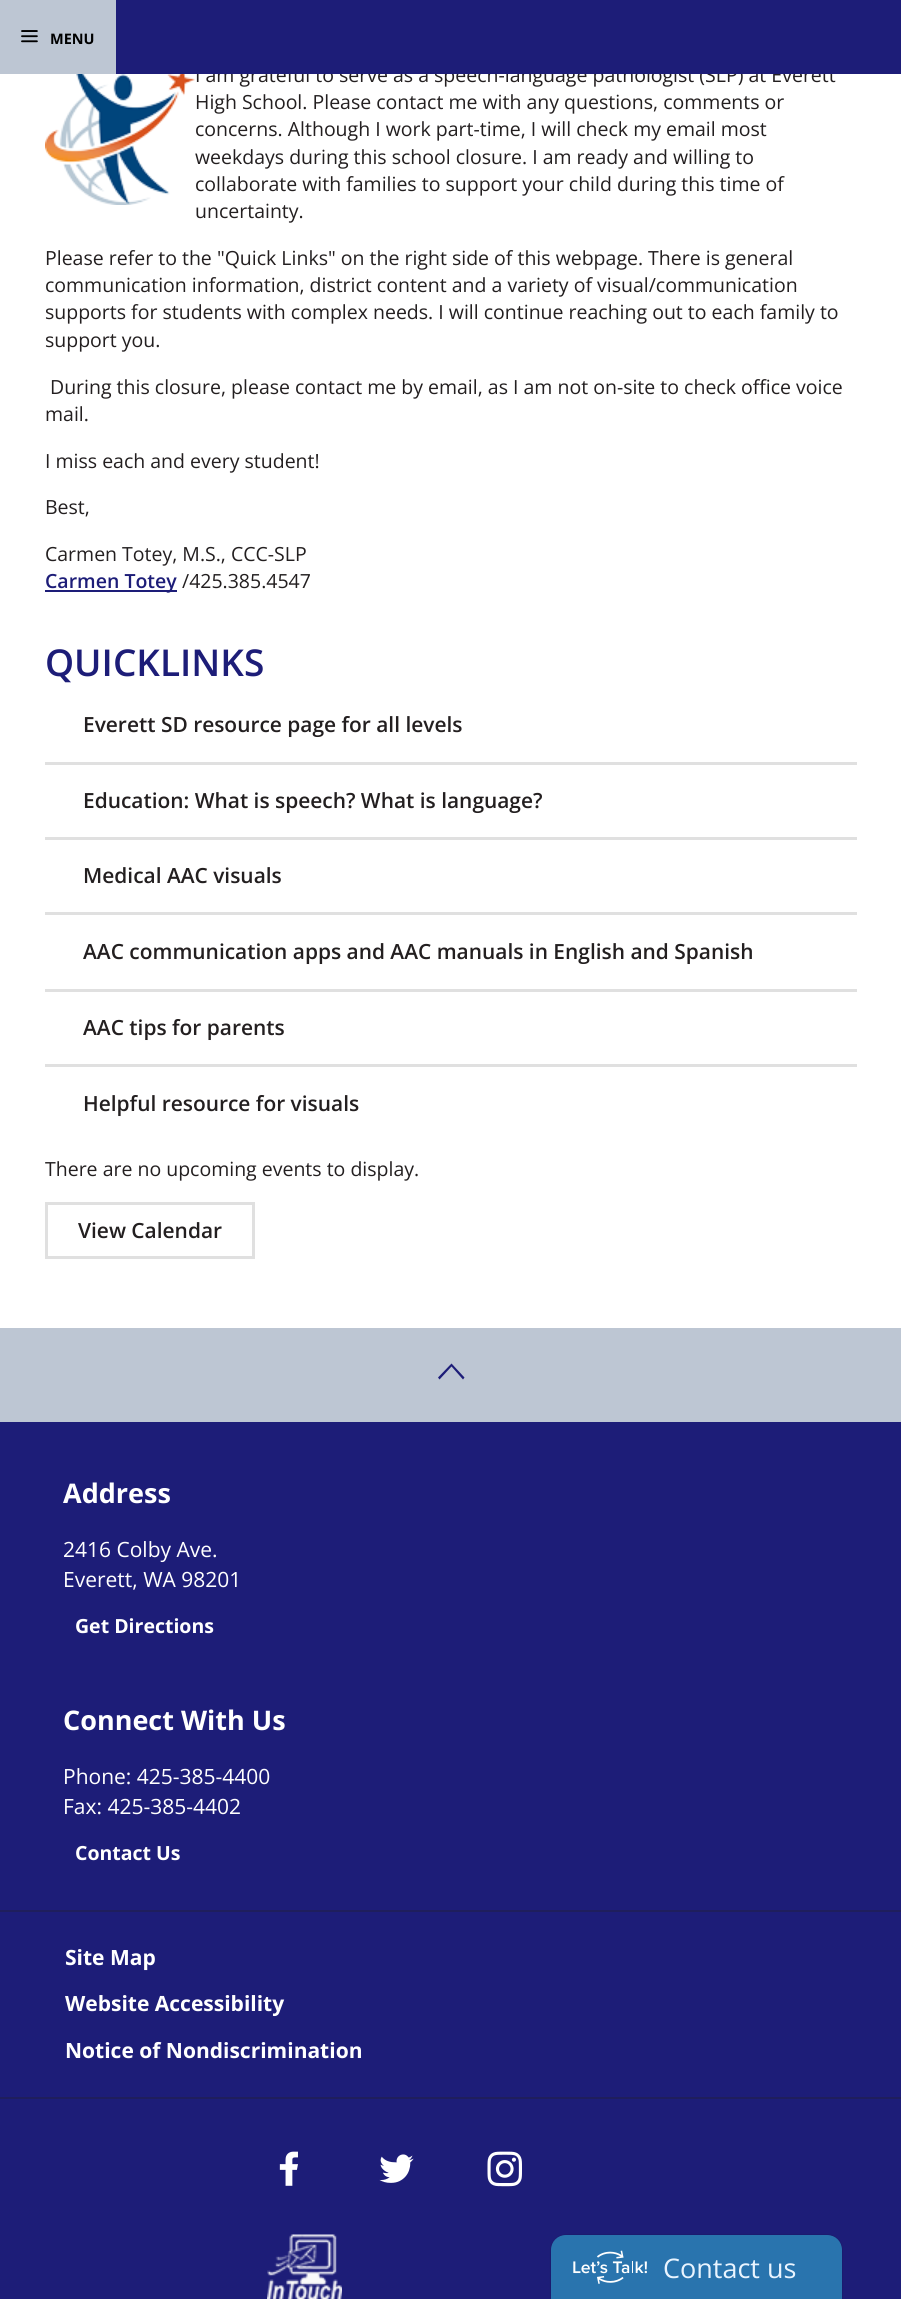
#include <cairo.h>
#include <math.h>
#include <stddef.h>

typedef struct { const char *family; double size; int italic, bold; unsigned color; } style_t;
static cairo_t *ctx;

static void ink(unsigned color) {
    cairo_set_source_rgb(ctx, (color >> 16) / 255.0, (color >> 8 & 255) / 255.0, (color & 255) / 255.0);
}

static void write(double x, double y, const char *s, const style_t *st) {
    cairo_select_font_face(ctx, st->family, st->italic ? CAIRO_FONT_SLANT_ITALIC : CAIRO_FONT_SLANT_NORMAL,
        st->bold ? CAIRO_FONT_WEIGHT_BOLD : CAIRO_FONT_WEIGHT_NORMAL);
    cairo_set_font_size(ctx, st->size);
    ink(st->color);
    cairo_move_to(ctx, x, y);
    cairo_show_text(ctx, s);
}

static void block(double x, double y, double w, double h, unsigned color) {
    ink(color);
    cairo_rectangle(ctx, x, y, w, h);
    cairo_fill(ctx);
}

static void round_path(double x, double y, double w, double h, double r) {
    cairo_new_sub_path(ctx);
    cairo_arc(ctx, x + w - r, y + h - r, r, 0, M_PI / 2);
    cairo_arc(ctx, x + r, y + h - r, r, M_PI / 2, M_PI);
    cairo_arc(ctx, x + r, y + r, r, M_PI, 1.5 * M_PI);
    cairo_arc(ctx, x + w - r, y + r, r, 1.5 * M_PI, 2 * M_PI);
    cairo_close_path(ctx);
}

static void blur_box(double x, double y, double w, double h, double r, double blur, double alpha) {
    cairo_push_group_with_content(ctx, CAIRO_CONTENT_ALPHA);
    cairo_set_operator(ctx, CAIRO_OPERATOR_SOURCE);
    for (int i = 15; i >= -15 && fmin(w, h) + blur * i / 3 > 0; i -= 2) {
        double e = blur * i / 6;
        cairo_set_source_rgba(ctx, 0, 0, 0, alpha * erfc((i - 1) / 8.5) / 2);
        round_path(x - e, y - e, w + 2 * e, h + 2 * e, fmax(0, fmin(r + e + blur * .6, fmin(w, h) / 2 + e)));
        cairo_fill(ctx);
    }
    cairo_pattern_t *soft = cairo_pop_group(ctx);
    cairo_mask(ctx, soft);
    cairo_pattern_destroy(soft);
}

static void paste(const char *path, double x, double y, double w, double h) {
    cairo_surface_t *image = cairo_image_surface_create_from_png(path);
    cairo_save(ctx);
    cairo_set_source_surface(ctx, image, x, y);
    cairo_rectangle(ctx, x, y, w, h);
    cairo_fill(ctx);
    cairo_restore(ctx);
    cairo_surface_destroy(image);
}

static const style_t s1 = {"Open Sans", 19.5, 0, 0, 0x231f20};
static const style_t s2 = {"Open Sans", 14.5, 0, 1, 0x000000};
static const style_t s3 = {"Open Sans SemiBold", 19.5, 0, 0, 0x1d1d78};
static const style_t s4 = {"Open Sans SemiBold", 37, 0, 0, 0x1d1d78};
static const style_t s5 = {"Open Sans SemiBold", 20.9, 0, 0, 0x231f20};
static const style_t s6 = {"Open Sans", 27, 0, 1, 0xffffff};
static const style_t s7 = {"Open Sans", 21, 0, 0, 0xffffff};
static const style_t s8 = {"Open Sans", 19.5, 0, 1, 0xffffff};
static const style_t s9 = {"Open Sans", 21, 0, 1, 0xffffff};
static const style_t s10 = {"Open Sans", 27, 0, 0, 0xe9f4ff};

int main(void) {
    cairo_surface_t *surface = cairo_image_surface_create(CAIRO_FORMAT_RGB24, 901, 2299);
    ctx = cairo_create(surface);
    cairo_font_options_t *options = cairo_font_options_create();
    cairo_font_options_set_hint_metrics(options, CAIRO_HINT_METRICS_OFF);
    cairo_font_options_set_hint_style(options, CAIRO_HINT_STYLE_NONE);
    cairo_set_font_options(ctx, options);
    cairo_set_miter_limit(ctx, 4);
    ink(0xffffff);
    cairo_paint(ctx);
    write(195, 82, "I am grateful to serve as a speech-language pathologist (SLP) at Everett", &s1);
    block(116, 0, 785, 74, 0x1d1d78);
    block(0, 0, 116, 74, 0xbdc6d3);
    paste("pic1.png", 21, 30, 17, 13);
    write(50, 44, "MENU", &s2);
    paste("pic2.png", 45, 74, 150, 131);
    write(195, 109, "High School. Please contact me with any questions, comments or", &s1);
    write(195, 136, "concerns. Although I work part-time, I will check my email most", &s1);
    write(195, 164, "weekdays during this school closure. I am ready and willing to", &s1);
    write(195, 191, "collaborate with families to support your child during this time of", &s1);
    write(195, 218, "uncertainty.", &s1);
    write(45, 265, "Please refer to the \"Quick Links\" on the right side of this webpage. There is general", &s1);
    write(45, 292, "communication information, district content and a variety of visual/communication", &s1);
    write(45, 319, "supports for students with complex needs. I will continue reaching out to each family to", &s1);
    write(45, 347, "support you.", &s1);
    write(50, 394, "During this closure, please contact me by email, as I am not on-site to check office voice", &s1);
    write(45, 421, "mail.", &s1);
    write(45, 468, "I miss each and every student!", &s1);
    write(45, 514, "Best,", &s1);
    write(45, 561, "Carmen Totey, M.S., CCC-SLP", &s1);
    block(45, 590, 132, 2, 0x1d1d78);
    write(45, 588, "Carmen Totey", &s3);
    write(182, 588, "/425.385.4547", &s1);
    write(45, 676, "QUICKLINKS", &s4);
    block(45, 762, 812, 3, 0xe0e0e0);
    write(83, 732, "Everett SD resource page for all levels", &s5);
    block(45, 837, 812, 3, 0xe0e0e0);
    write(83, 808, "Education: What is speech? What is language?", &s5);
    block(45, 912, 812, 3, 0xe0e0e0);
    write(83, 883, "Medical AAC visuals", &s5);
    block(45, 989, 812, 3, 0xe0e0e0);
    write(83, 959, "AAC communication apps and AAC manuals in English and Spanish", &s5);
    block(45, 1064, 812, 3, 0xe0e0e0);
    write(83, 1035, "AAC tips for parents", &s5);
    write(83, 1111, "Helpful resource for visuals", &s5);
    write(45, 1176, "There are no upcoming events to display.", &s1);
    cairo_rectangle(ctx, 46.5, 1203.5, 207, 54);
    ink(0xe0e0e0);
    cairo_set_line_width(ctx, 3);
    cairo_stroke(ctx);
    write(78, 1238, "View Calendar", &s5);
    block(0, 1328, 901, 94, 0xbdc6d3);
    ink(0x1d1d78);
    cairo_new_path(ctx);
    cairo_move_to(ctx, 439.5, 1379.5);
    cairo_line_to(ctx, 438, 1377.5);
    cairo_line_to(ctx, 451.5, 1363.5);
    cairo_line_to(ctx, 464.5, 1377.5);
    cairo_line_to(ctx, 463, 1379.5);
    cairo_line_to(ctx, 451.5, 1366.5);
    cairo_close_path(ctx);
    cairo_fill(ctx);
    block(0, 1422, 901, 675, 0x1d1d78);
    block(0, 2097, 901, 2, 0x1f1e5d);
    block(0, 1910, 901, 2, 0x1f1e5d);
    write(63, 1503, "Address", &s6);
    write(63, 1557, "2416 Colby Ave.", &s7);
    write(63, 1587, "Everett, WA 98201", &s7);
    write(75, 1633, "Get Directions", &s8);
    write(63, 1730, "Connect With Us", &s6);
    write(63, 1784, "Phone: 425-385-4400", &s7);
    write(63, 1814, "Fax: 425-385-4402", &s7);
    write(75, 1860, "Contact Us", &s8);
    write(65, 1965, "Site Map", &s9);
    write(65, 2011, "Website Accessibility", &s9);
    write(65, 2058, "Notice of Nondiscrimination", &s9);
    block(0, 2099, 901, 200, 0x1d1d78);
    paste("pic3.png", 279, 2151, 19, 35);
    paste("pic4.png", 379, 2154, 35, 29);
    paste("pic5.png", 487, 2151, 35, 36);
    paste("pic6.png", 267, 2234, 75, 65);
    ink(0x000000);
    blur_box(551, 2235, 291, 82, 15, 1, 0.22);
    ink(0x2974ae);
    cairo_new_path(ctx);
    cairo_move_to(ctx, 566, 2235);
    cairo_line_to(ctx, 827, 2235);
    cairo_curve_to(ctx, 835.5, 2235, 842, 2241.5, 842, 2250);
    cairo_line_to(ctx, 842, 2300);
    cairo_line_to(ctx, 551, 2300);
    cairo_line_to(ctx, 551, 2250);
    cairo_curve_to(ctx, 551, 2241.5, 557.5, 2235, 566, 2235);
    cairo_close_path(ctx);
    cairo_fill(ctx);
    paste("pic7.png", 573, 2250, 74, 34);
    write(663, 2278, "Contact us", &s10);
    cairo_surface_write_to_png(surface, "screenshot.png");
    cairo_font_options_destroy(options);
    cairo_destroy(ctx);
    cairo_surface_destroy(surface);
    return 0;
}
